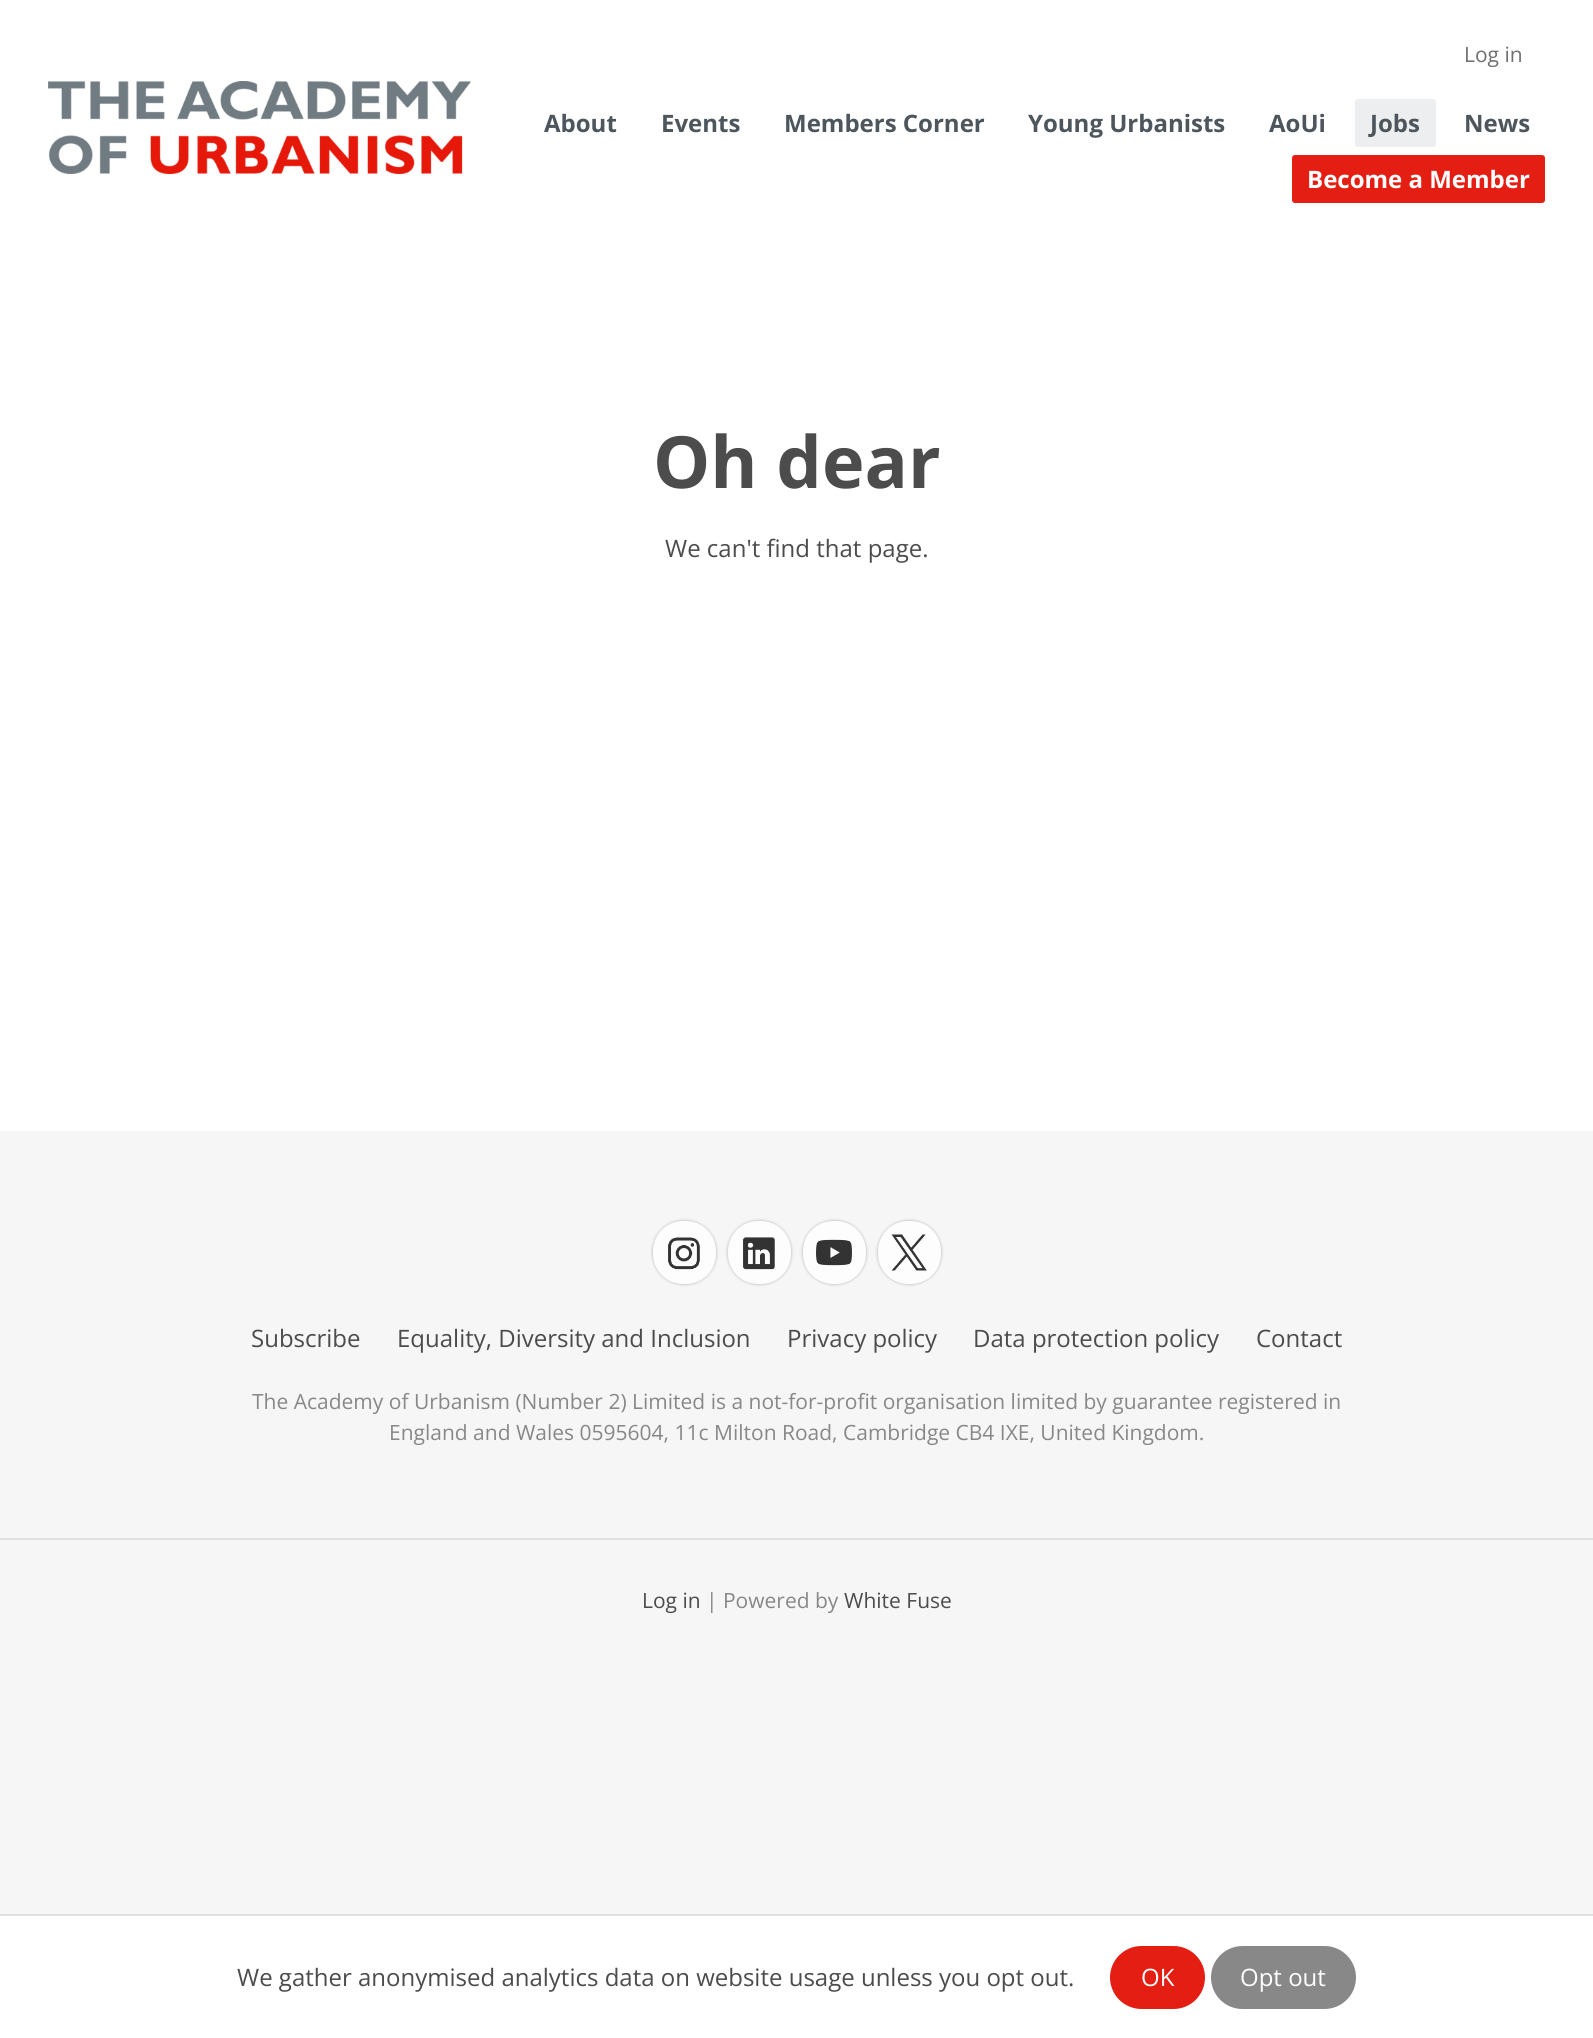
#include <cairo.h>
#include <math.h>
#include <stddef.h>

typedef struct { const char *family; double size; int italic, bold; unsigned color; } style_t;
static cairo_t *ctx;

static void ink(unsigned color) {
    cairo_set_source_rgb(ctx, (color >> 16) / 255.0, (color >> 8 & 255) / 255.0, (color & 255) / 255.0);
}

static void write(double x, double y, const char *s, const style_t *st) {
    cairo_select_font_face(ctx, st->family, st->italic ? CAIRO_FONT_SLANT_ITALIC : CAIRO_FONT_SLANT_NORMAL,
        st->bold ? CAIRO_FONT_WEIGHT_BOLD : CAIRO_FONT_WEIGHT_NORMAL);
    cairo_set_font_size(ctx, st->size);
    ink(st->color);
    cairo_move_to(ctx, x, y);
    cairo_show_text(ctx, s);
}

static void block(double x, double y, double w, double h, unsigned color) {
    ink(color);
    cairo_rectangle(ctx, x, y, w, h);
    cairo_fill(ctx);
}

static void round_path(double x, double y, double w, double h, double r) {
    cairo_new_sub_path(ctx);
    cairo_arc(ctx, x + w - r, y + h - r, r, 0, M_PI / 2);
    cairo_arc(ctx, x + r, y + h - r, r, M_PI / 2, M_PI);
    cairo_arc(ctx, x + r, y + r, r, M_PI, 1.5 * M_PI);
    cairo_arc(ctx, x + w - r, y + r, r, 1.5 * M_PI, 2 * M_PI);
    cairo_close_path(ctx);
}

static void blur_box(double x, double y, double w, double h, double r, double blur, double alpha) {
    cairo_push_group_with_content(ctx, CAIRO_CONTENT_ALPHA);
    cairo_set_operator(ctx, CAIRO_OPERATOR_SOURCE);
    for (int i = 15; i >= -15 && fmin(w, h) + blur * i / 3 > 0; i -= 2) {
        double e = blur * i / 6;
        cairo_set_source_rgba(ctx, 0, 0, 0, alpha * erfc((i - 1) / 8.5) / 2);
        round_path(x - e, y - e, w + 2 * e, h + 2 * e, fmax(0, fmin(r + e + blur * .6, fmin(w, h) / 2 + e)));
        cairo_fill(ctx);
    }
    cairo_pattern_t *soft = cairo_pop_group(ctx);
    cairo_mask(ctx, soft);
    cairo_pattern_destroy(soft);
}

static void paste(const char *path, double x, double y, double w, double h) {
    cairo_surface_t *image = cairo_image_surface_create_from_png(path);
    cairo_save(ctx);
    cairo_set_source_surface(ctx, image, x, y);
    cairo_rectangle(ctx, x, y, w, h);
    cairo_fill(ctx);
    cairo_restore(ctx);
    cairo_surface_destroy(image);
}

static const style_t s1 = {"Open Sans", 21, 0, 0, 0x707070};
static const style_t s2 = {"Open Sans", 24, 0, 1, 0x4c565c};
static const style_t s3 = {"Open Sans", 24, 0, 1, 0xffffff};
static const style_t s4 = {"Open Sans", 72, 0, 1, 0x4c4c4c};
static const style_t s5 = {"Open Sans", 24, 0, 0, 0x4c4c4c};
static const style_t s6 = {"Open Sans", 21, 0, 0, 0x888888};
static const style_t s7 = {"Open Sans", 21, 0, 0, 0x4c4c4c};
static const style_t s8 = {"Open Sans", 24, 0, 0, 0xffffff};

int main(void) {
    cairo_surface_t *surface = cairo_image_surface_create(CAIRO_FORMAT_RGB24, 1593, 2038);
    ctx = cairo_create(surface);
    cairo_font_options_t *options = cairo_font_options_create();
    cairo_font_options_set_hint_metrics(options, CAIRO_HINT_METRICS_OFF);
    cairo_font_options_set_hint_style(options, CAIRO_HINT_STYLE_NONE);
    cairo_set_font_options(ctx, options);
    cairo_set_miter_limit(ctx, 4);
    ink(0xf6f6f6);
    cairo_paint(ctx);
    block(0, 0, 1593, 1131, 0xffffff);
    paste("pic1.png", 48, 81, 423, 93);
    write(1464, 62, "Log in", &s1);
    write(544, 132, "About", &s2);
    write(661, 132, "Events", &s2);
    write(784, 132, "Members Corner", &s2);
    write(1028, 132, "Young Urbanists", &s2);
    write(1269, 132, "AoUi", &s2);
    ink(0xedeeef);
    round_path(1355, 99, 81, 48, 3);
    cairo_fill(ctx);
    write(1370, 132, "Jobs", &s2);
    write(1464, 132, "News", &s2);
    ink(0xe41e13);
    round_path(1292, 155, 253, 48, 3);
    cairo_fill(ctx);
    write(1307, 188, "Become a Member", &s3);
    write(653, 488, "Oh dear", &s4);
    write(665, 557, "We can't find that page.", &s5);
    block(0, 1538, 1593, 2, 0xe0e0e0);
    ink(0x313131);
    blur_box(653, 1221, 63, 63, 30, 1.5, 0.4);
    ink(0xfdfdfd);
    round_path(653, 1221, 63, 63, 30);
    cairo_fill(ctx);
    paste("pic2.png", 668, 1237, 32, 33);
    ink(0x313131);
    blur_box(728, 1221, 63, 63, 30, 1.5, 0.4);
    ink(0xfdfdfd);
    round_path(728, 1221, 63, 63, 30);
    cairo_fill(ctx);
    paste("pic3.png", 743, 1237, 32, 33);
    ink(0x313131);
    blur_box(803, 1221, 63, 63, 30, 1.5, 0.4);
    ink(0xfdfdfd);
    round_path(803, 1221, 63, 63, 30);
    cairo_fill(ctx);
    paste("pic4.png", 816, 1239, 36, 27);
    ink(0x313131);
    blur_box(878, 1221, 63, 63, 30, 1.5, 0.4);
    ink(0xfdfdfd);
    round_path(878, 1221, 63, 63, 30);
    cairo_fill(ctx);
    paste("pic5.png", 891, 1234, 36, 37);
    write(251, 1347, "Subscribe", &s5);
    write(397, 1347, "Equality, Diversity and Inclusion", &s5);
    write(787, 1347, "Privacy policy", &s5);
    write(973, 1347, "Data protection policy", &s5);
    write(1256, 1347, "Contact", &s5);
    write(252, 1409, "The Academy of Urbanism (Number 2) Limited is a not-for-profit organisation limited by guarantee registered in", &s6);
    write(389, 1440, "England and Wales 0595604, 11c Milton Road, Cambridge CB4 IXE, United Kingdom.", &s6);
    write(642, 1608, "Log in", &s7);
    write(706, 1608, "| Powered by", &s6);
    write(844, 1608, "White Fuse", &s7);
    block(0, 1916, 1593, 122, 0xffffff);
    block(0, 1914, 1593, 2, 0xe0e0e0);
    write(237, 1986, "We gather anonymised analytics data on website usage unless you opt out.", &s5);
    ink(0xe41e13);
    round_path(1110, 1946, 95, 63, 31.5);
    cairo_fill(ctx);
    write(1141, 1986, "OK", &s8);
    ink(0x888888);
    round_path(1211, 1946, 145, 63, 31.5);
    cairo_fill(ctx);
    write(1240, 1986, "Opt out", &s8);
    cairo_surface_write_to_png(surface, "screenshot.png");
    cairo_font_options_destroy(options);
    cairo_destroy(ctx);
    cairo_surface_destroy(surface);
    return 0;
}
